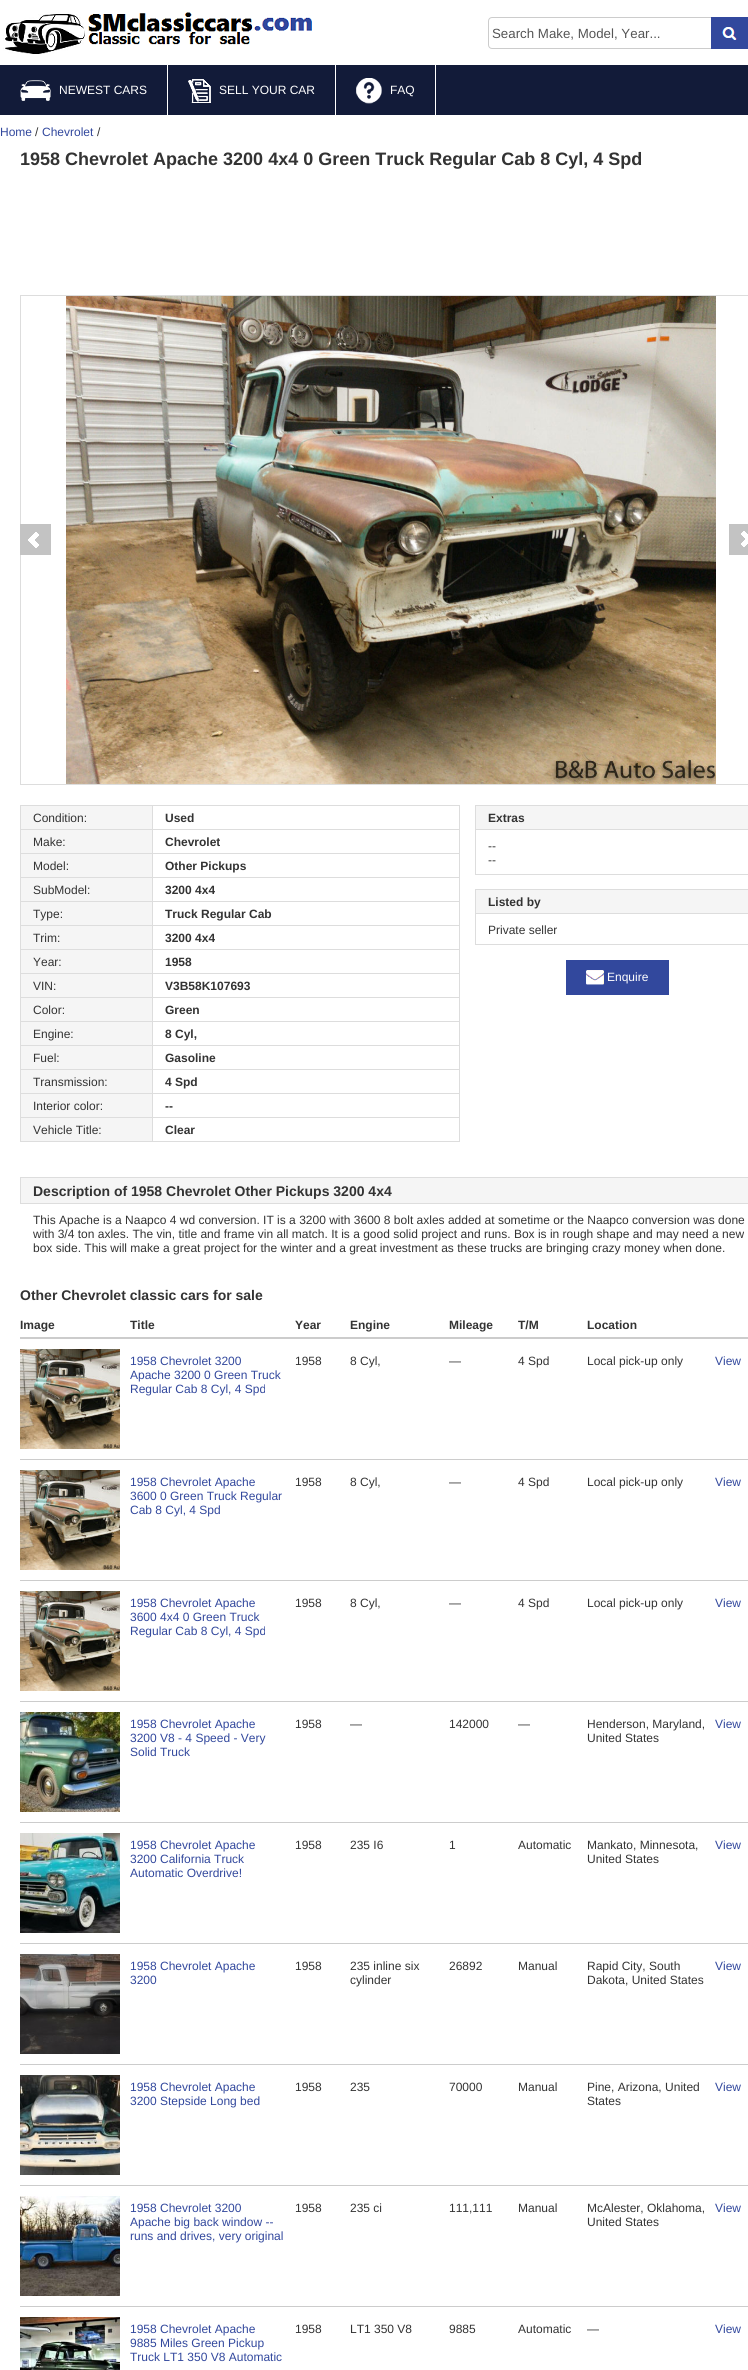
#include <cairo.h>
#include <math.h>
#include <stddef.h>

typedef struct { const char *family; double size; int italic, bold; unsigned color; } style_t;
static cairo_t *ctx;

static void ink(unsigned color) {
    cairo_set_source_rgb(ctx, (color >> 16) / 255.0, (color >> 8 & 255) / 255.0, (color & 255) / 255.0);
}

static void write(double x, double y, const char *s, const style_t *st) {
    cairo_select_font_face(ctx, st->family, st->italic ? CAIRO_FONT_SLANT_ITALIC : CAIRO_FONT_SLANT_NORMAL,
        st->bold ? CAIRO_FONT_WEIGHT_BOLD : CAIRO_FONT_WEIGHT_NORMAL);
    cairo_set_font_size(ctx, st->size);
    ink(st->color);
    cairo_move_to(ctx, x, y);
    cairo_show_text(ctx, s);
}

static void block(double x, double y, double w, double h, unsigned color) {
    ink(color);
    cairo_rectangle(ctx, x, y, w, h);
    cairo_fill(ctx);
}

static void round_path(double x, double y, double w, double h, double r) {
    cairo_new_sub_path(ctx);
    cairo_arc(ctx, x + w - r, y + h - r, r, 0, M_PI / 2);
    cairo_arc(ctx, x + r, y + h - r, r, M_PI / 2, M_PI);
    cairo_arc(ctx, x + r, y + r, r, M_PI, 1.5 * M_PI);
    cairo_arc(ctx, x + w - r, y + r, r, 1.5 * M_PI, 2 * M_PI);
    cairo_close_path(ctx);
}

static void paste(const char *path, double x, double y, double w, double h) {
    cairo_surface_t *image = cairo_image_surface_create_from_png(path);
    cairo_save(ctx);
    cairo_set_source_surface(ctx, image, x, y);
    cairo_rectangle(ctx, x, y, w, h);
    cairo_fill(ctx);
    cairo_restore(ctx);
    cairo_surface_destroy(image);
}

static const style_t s1 = {"Liberation Sans", 13.3, 0, 0, 0x555555};
static const style_t s2 = {"Liberation Sans", 12, 0, 0, 0xffffff};
static const style_t s3 = {"Liberation Sans", 12, 0, 0, 0x32489d};
static const style_t s4 = {"Liberation Sans", 12, 0, 0, 0x333333};
static const style_t s5 = {"Liberation Sans", 18, 0, 1, 0x333333};
static const style_t s6 = {"Liberation Sans", 12, 0, 1, 0x333333};
static const style_t s7 = {"Liberation Sans", 14, 0, 1, 0x333333};

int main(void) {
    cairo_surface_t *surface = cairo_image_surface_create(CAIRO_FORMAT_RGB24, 748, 2370);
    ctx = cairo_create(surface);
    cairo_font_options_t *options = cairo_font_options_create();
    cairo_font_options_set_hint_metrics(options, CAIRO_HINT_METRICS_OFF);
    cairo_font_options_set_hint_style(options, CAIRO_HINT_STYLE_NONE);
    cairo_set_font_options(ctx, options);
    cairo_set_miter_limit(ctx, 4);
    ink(0xffffff);
    cairo_paint(ctx);
    paste("pic1.png", 3, 12, 309, 42);
    round_path(488.5, 17.5, 227, 31, 3.5);
    ink(0xcccccc);
    cairo_set_line_width(ctx, 1);
    cairo_stroke(ctx);
    write(492, 38, "Search Make, Model, Year...", &s1);
    paste("pic2.png", 711, 17, 37, 32);
    block(0, 65, 748, 50, 0x121b39);
    block(167, 65, 1, 50, 0xffffff);
    paste("pic3.png", 20, 80, 31, 21);
    write(59, 94, "NEWEST CARS", &s2);
    block(335, 65, 1, 50, 0xffffff);
    paste("pic4.png", 188, 79, 23, 24);
    write(219, 94, "SELL YOUR CAR", &s2);
    block(435, 65, 1, 50, 0xffffff);
    paste("pic5.png", 356, 78, 26, 26);
    write(390, 94, "FAQ", &s2);
    write(0, 136, "Home", &s3);
    write(35, 136, "/", &s4);
    write(42, 136, "Chevrolet", &s3);
    write(97, 136, "/", &s4);
    write(20, 165, "1958 Chevrolet Apache 3200 4x4 0 Green Truck Regular Cab 8 Cyl, 4 Spd", &s5);
    cairo_rectangle(ctx, 20.5, 295.5, 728, 489);
    ink(0xdddddd);
    cairo_stroke(ctx);
    paste("pic6.png", 66, 296, 650, 488);
    paste("pic7.png", 20, 524, 31, 31);
    paste("pic8.png", 729, 524, 19, 31);
    block(21, 806, 131, 23, 0xf5f5f5);
    block(152, 805, 308, 1, 0xdddddd);
    block(152, 829, 308, 1, 0xdddddd);
    block(152, 853, 308, 1, 0xdddddd);
    block(152, 877, 308, 1, 0xdddddd);
    block(152, 901, 308, 1, 0xdddddd);
    block(152, 925, 308, 1, 0xdddddd);
    block(152, 949, 308, 1, 0xdddddd);
    block(152, 973, 308, 1, 0xdddddd);
    block(152, 997, 308, 1, 0xdddddd);
    block(152, 1021, 308, 1, 0xdddddd);
    block(152, 1045, 308, 1, 0xdddddd);
    block(152, 1069, 308, 1, 0xdddddd);
    block(152, 1093, 308, 1, 0xdddddd);
    block(152, 1117, 308, 1, 0xdddddd);
    block(459, 1117, 1, 25, 0xdddddd);
    block(152, 1141, 308, 1, 0xdddddd);
    block(152, 1117, 1, 25, 0xdddddd);
    block(20, 1117, 133, 1, 0xdddddd);
    block(152, 1093, 1, 25, 0xdddddd);
    block(20, 1093, 133, 1, 0xdddddd);
    block(152, 1069, 1, 25, 0xdddddd);
    block(20, 1069, 133, 1, 0xdddddd);
    block(152, 1045, 1, 25, 0xdddddd);
    block(20, 1045, 133, 1, 0xdddddd);
    block(152, 1021, 1, 25, 0xdddddd);
    block(20, 1021, 133, 1, 0xdddddd);
    block(152, 997, 1, 25, 0xdddddd);
    block(20, 997, 133, 1, 0xdddddd);
    block(152, 973, 1, 25, 0xdddddd);
    block(20, 973, 133, 1, 0xdddddd);
    block(152, 949, 1, 25, 0xdddddd);
    block(20, 949, 133, 1, 0xdddddd);
    block(152, 925, 1, 25, 0xdddddd);
    block(20, 925, 133, 1, 0xdddddd);
    block(152, 901, 1, 25, 0xdddddd);
    block(20, 901, 133, 1, 0xdddddd);
    block(152, 877, 1, 25, 0xdddddd);
    block(20, 877, 133, 1, 0xdddddd);
    block(152, 853, 1, 25, 0xdddddd);
    block(20, 853, 133, 1, 0xdddddd);
    block(152, 829, 1, 25, 0xdddddd);
    block(20, 829, 133, 1, 0xdddddd);
    block(152, 805, 1, 25, 0xdddddd);
    block(20, 805, 133, 1, 0xdddddd);
    block(20, 1141, 133, 1, 0xdddddd);
    block(20, 1117, 1, 25, 0xdddddd);
    block(20, 1093, 1, 25, 0xdddddd);
    block(20, 1069, 1, 25, 0xdddddd);
    block(20, 1045, 1, 25, 0xdddddd);
    block(20, 1021, 1, 25, 0xdddddd);
    block(20, 997, 1, 25, 0xdddddd);
    block(20, 973, 1, 25, 0xdddddd);
    block(20, 949, 1, 25, 0xdddddd);
    block(20, 925, 1, 25, 0xdddddd);
    block(20, 901, 1, 25, 0xdddddd);
    block(20, 877, 1, 25, 0xdddddd);
    block(20, 853, 1, 25, 0xdddddd);
    block(20, 829, 1, 25, 0xdddddd);
    block(20, 805, 1, 25, 0xdddddd);
    write(33, 822, "Condition:", &s4);
    block(459, 1093, 1, 25, 0xdddddd);
    block(459, 1069, 1, 25, 0xdddddd);
    block(459, 1045, 1, 25, 0xdddddd);
    block(459, 1021, 1, 25, 0xdddddd);
    block(459, 997, 1, 25, 0xdddddd);
    block(459, 973, 1, 25, 0xdddddd);
    block(459, 949, 1, 25, 0xdddddd);
    block(459, 925, 1, 25, 0xdddddd);
    block(459, 901, 1, 25, 0xdddddd);
    block(459, 877, 1, 25, 0xdddddd);
    block(459, 853, 1, 25, 0xdddddd);
    block(459, 829, 1, 25, 0xdddddd);
    block(459, 805, 1, 25, 0xdddddd);
    write(165, 822, "Used", &s6);
    block(21, 830, 131, 23, 0xf5f5f5);
    write(33, 846, "Make:", &s4);
    write(165, 846, "Chevrolet", &s6);
    block(21, 854, 131, 23, 0xf5f5f5);
    write(33, 870, "Model:", &s4);
    write(165, 870, "Other Pickups", &s6);
    block(21, 878, 131, 23, 0xf5f5f5);
    write(33, 894, "SubModel:", &s4);
    write(165, 894, "3200 4x4", &s6);
    block(21, 902, 131, 23, 0xf5f5f5);
    write(33, 918, "Type:", &s4);
    write(165, 918, "Truck Regular Cab", &s6);
    block(21, 926, 131, 23, 0xf5f5f5);
    write(33, 942, "Trim:", &s4);
    write(165, 942, "3200 4x4", &s6);
    block(21, 950, 131, 23, 0xf5f5f5);
    write(33, 966, "Year:", &s4);
    write(165, 966, "1958", &s6);
    block(21, 974, 131, 23, 0xf5f5f5);
    write(33, 990, "VIN:", &s4);
    write(165, 990, "V3B58K107693", &s6);
    block(21, 998, 131, 23, 0xf5f5f5);
    write(33, 1014, "Color:", &s4);
    write(165, 1014, "Green", &s6);
    block(21, 1022, 131, 23, 0xf5f5f5);
    write(33, 1038, "Engine:", &s4);
    write(165, 1038, "8 Cyl,", &s6);
    block(21, 1046, 131, 23, 0xf5f5f5);
    write(33, 1062, "Fuel:", &s4);
    write(165, 1062, "Gasoline", &s6);
    block(21, 1070, 131, 23, 0xf5f5f5);
    write(33, 1086, "Transmission:", &s4);
    write(165, 1086, "4 Spd", &s6);
    block(21, 1094, 131, 23, 0xf5f5f5);
    write(33, 1110, "Interior color:", &s4);
    write(165, 1110, "--", &s6);
    block(21, 1118, 131, 23, 0xf5f5f5);
    write(33, 1134, "Vehicle Title:", &s4);
    write(165, 1134, "Clear", &s6);
    block(476, 806, 272, 23, 0xf5f5f5);
    block(475, 805, 273, 1, 0xdddddd);
    block(475, 829, 273, 1, 0xdddddd);
    block(475, 874, 273, 1, 0xdddddd);
    block(475, 829, 1, 46, 0xdddddd);
    block(475, 805, 1, 25, 0xdddddd);
    write(488, 822, "Extras", &s6);
    write(488, 850, "--", &s4);
    write(488, 864, "--", &s4);
    block(476, 890, 272, 23, 0xf5f5f5);
    block(475, 889, 273, 1, 0xdddddd);
    block(475, 913, 273, 1, 0xdddddd);
    block(475, 944, 273, 1, 0xdddddd);
    block(475, 913, 1, 32, 0xdddddd);
    block(475, 889, 1, 25, 0xdddddd);
    write(488, 906, "Listed by", &s6);
    write(488, 934, "Private seller", &s4);
    block(566, 960, 103, 35, 0x32489d);
    paste("pic9.png", 586, 970, 18, 15);
    write(607, 981, "Enquire", &s2);
    block(21, 1178, 727, 25, 0xf5f5f5);
    block(20, 1177, 728, 1, 0xdddddd);
    block(20, 1203, 728, 1, 0xdddddd);
    block(20, 1177, 1, 27, 0xdddddd);
    write(33, 1196, "Description of 1958 Chevrolet Other Pickups 3200 4x4", &s7);
    write(33, 1224, "This Apache is a Naapco 4 wd conversion. IT is a 3200 with 3600 8 bolt axles added at sometime or the Naapco conversion was done", &s4);
    write(33, 1238, "with 3/4 ton axles. The vin, title and frame vin all match. It is a good solid project and runs. Box is in rough shape and may need a new", &s4);
    write(33, 1252, "box side. This will make a great project for the winter and a great investment as these trucks are bringing crazy money when done.", &s4);
    write(20, 1300, "Other Chevrolet classic cars for sale", &s7);
    block(20, 1337, 728, 2, 0xcccccc);
    write(20, 1329, "Image", &s6);
    write(130, 1329, "Title", &s6);
    write(295, 1329, "Year", &s6);
    write(350, 1329, "Engine", &s6);
    write(449, 1329, "Mileage", &s6);
    write(518, 1329, "T/M", &s6);
    write(587, 1329, "Location", &s6);
    paste("pic10.png", 20, 1349, 100, 100);
    write(130, 1365, "1958 Chevrolet 3200", &s3);
    write(130, 1379, "Apache 3200 0 Green Truck", &s3);
    write(130, 1393, "Regular Cab 8 Cyl, 4 Spd", &s3);
    write(295, 1365, "1958", &s4);
    write(350, 1365, "8 Cyl,", &s4);
    write(449, 1365, "—", &s4);
    write(518, 1365, "4 Spd", &s4);
    write(587, 1365, "Local pick-up only", &s4);
    write(715, 1365, "View", &s3);
    block(20, 1459, 728, 1, 0xcccccc);
    paste("pic11.png", 20, 1470, 100, 100);
    write(130, 1486, "1958 Chevrolet Apache", &s3);
    write(130, 1500, "3600 0 Green Truck Regular", &s3);
    write(130, 1514, "Cab 8 Cyl, 4 Spd", &s3);
    write(295, 1486, "1958", &s4);
    write(350, 1486, "8 Cyl,", &s4);
    write(449, 1486, "—", &s4);
    write(518, 1486, "4 Spd", &s4);
    write(587, 1486, "Local pick-up only", &s4);
    write(715, 1486, "View", &s3);
    block(20, 1580, 728, 1, 0xcccccc);
    paste("pic12.png", 20, 1591, 100, 100);
    write(130, 1607, "1958 Chevrolet Apache", &s3);
    write(130, 1621, "3600 4x4 0 Green Truck", &s3);
    write(130, 1635, "Regular Cab 8 Cyl, 4 Spd", &s3);
    write(295, 1607, "1958", &s4);
    write(350, 1607, "8 Cyl,", &s4);
    write(449, 1607, "—", &s4);
    write(518, 1607, "4 Spd", &s4);
    write(587, 1607, "Local pick-up only", &s4);
    write(715, 1607, "View", &s3);
    block(20, 1701, 728, 1, 0xcccccc);
    paste("pic13.png", 20, 1712, 100, 100);
    write(130, 1728, "1958 Chevrolet Apache", &s3);
    write(130, 1742, "3200 V8 - 4 Speed - Very", &s3);
    write(130, 1756, "Solid Truck", &s3);
    write(295, 1728, "1958", &s4);
    write(350, 1728, "—", &s4);
    write(449, 1728, "142000", &s4);
    write(518, 1728, "—", &s4);
    write(587, 1728, "Henderson, Maryland,", &s4);
    write(587, 1742, "United States", &s4);
    write(715, 1728, "View", &s3);
    block(20, 1822, 728, 1, 0xcccccc);
    paste("pic14.png", 20, 1833, 100, 100);
    write(130, 1849, "1958 Chevrolet Apache", &s3);
    write(130, 1863, "3200 California Truck", &s3);
    write(130, 1877, "Automatic Overdrive!", &s3);
    write(295, 1849, "1958", &s4);
    write(350, 1849, "235 I6", &s4);
    write(449, 1849, "1", &s4);
    write(518, 1849, "Automatic", &s4);
    write(587, 1849, "Mankato, Minnesota,", &s4);
    write(587, 1863, "United States", &s4);
    write(715, 1849, "View", &s3);
    block(20, 1943, 728, 1, 0xcccccc);
    paste("pic15.png", 20, 1954, 100, 100);
    write(130, 1970, "1958 Chevrolet Apache", &s3);
    write(130, 1984, "3200", &s3);
    write(295, 1970, "1958", &s4);
    write(350, 1970, "235 inline six", &s4);
    write(350, 1984, "cylinder", &s4);
    write(449, 1970, "26892", &s4);
    write(518, 1970, "Manual", &s4);
    write(587, 1970, "Rapid City, South", &s4);
    write(587, 1984, "Dakota, United States", &s4);
    write(715, 1970, "View", &s3);
    block(20, 2064, 728, 1, 0xcccccc);
    paste("pic16.png", 20, 2075, 100, 100);
    write(130, 2091, "1958 Chevrolet Apache", &s3);
    write(130, 2105, "3200 Stepside Long bed", &s3);
    write(295, 2091, "1958", &s4);
    write(350, 2091, "235", &s4);
    write(449, 2091, "70000", &s4);
    write(518, 2091, "Manual", &s4);
    write(587, 2091, "Pine, Arizona, United", &s4);
    write(587, 2105, "States", &s4);
    write(715, 2091, "View", &s3);
    block(20, 2185, 728, 1, 0xcccccc);
    paste("pic17.png", 20, 2196, 100, 100);
    write(130, 2212, "1958 Chevrolet 3200", &s3);
    write(130, 2226, "Apache big back window --", &s3);
    write(130, 2240, "runs and drives, very original", &s3);
    write(295, 2212, "1958", &s4);
    write(350, 2212, "235 ci", &s4);
    write(449, 2212, "111,111", &s4);
    write(518, 2212, "Manual", &s4);
    write(587, 2212, "McAlester, Oklahoma,", &s4);
    write(587, 2226, "United States", &s4);
    write(715, 2212, "View", &s3);
    block(20, 2306, 728, 1, 0xcccccc);
    paste("pic18.png", 20, 2317, 100, 53);
    write(130, 2333, "1958 Chevrolet Apache", &s3);
    write(130, 2347, "9885 Miles Green Pickup", &s3);
    write(130, 2361, "Truck LT1 350 V8 Automatic", &s3);
    write(295, 2333, "1958", &s4);
    write(350, 2333, "LT1 350 V8", &s4);
    write(449, 2333, "9885", &s4);
    write(518, 2333, "Automatic", &s4);
    write(587, 2333, "—", &s4);
    write(715, 2333, "View", &s3);
    cairo_surface_write_to_png(surface, "screenshot.png");
    cairo_font_options_destroy(options);
    cairo_destroy(ctx);
    cairo_surface_destroy(surface);
    return 0;
}
